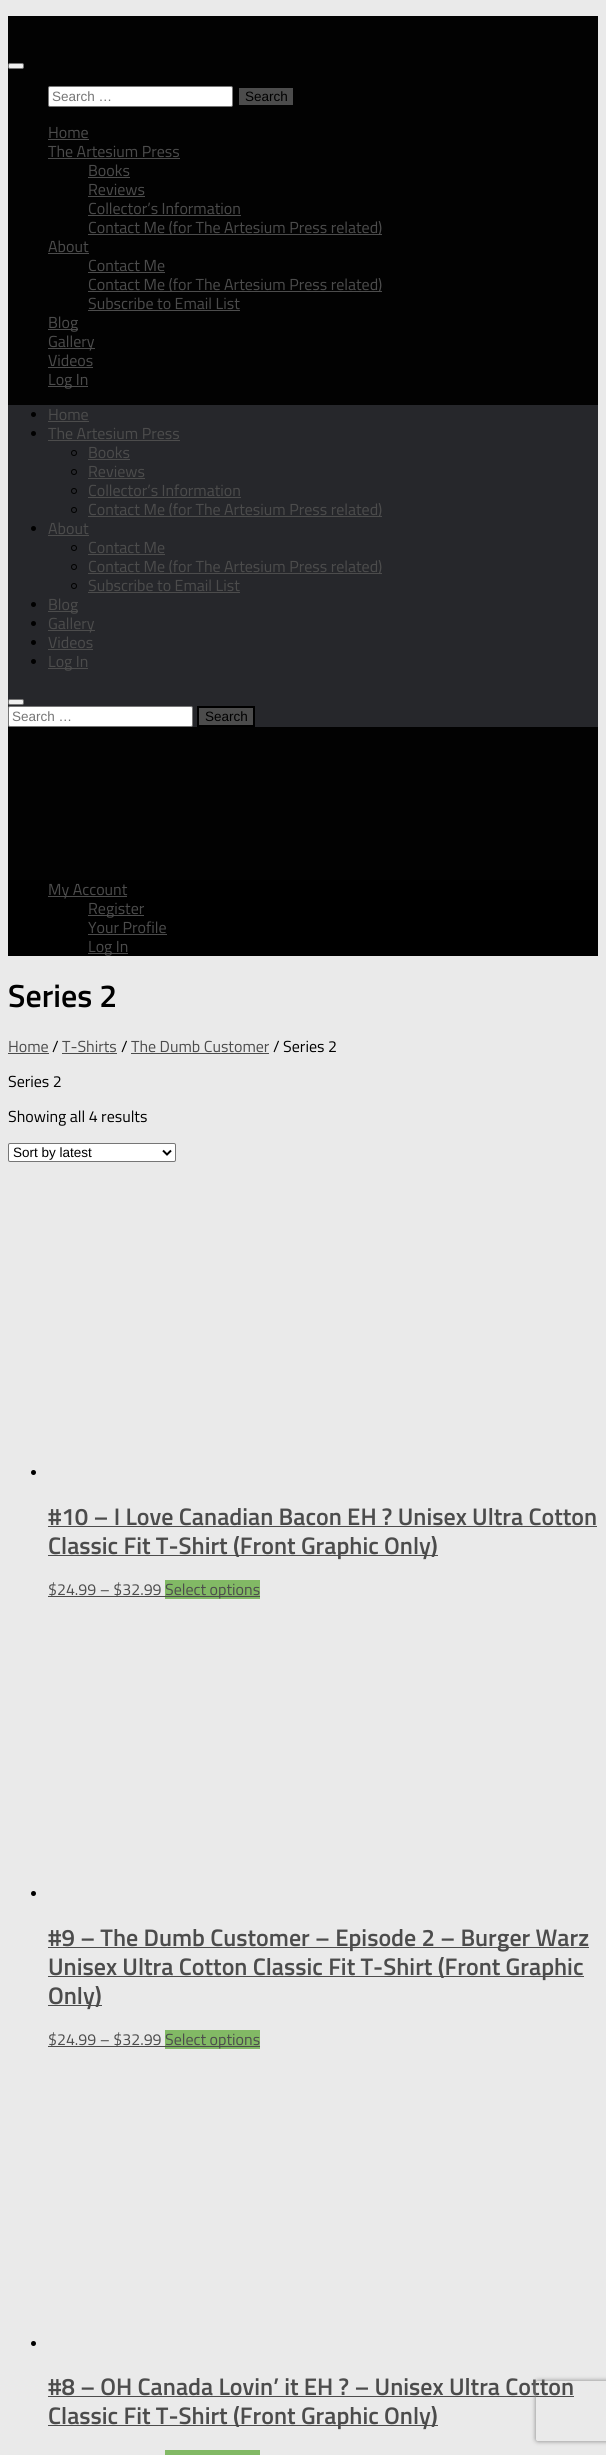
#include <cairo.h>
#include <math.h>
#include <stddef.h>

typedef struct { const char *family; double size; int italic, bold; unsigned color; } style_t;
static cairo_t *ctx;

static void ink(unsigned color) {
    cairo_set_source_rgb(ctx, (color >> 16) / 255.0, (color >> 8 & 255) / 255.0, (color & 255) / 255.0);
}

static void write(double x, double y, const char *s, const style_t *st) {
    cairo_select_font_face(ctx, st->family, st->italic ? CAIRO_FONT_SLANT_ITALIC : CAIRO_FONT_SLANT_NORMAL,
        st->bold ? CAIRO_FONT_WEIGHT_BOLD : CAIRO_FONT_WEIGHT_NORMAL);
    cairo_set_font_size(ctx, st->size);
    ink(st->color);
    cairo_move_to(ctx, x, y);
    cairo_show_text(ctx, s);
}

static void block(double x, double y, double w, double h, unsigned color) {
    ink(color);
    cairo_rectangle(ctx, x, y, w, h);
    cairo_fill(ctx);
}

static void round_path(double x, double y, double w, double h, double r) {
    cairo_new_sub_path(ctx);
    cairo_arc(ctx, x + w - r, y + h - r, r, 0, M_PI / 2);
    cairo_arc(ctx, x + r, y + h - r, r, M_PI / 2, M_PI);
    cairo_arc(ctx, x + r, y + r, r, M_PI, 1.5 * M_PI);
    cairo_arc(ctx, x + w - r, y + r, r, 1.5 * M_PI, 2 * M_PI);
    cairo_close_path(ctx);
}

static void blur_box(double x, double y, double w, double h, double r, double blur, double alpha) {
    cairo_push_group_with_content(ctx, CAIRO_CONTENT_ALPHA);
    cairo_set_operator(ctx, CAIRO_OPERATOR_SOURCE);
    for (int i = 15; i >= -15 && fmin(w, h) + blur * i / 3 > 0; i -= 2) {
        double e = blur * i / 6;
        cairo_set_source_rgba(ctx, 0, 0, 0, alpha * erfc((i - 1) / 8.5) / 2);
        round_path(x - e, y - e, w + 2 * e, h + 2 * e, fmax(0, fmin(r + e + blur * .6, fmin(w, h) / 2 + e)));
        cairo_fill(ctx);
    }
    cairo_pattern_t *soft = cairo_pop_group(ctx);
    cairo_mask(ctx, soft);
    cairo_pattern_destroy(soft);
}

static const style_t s1 = {"Liberation Sans", 13.5, 0, 0, 0x757575};
static const style_t s2 = {"Liberation Sans", 13.5, 0, 0, 0x000000};
static const style_t s3 = {"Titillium", 16, 0, 0, 0x4c4c4c};
static const style_t s4 = {"Titillium SemiBold", 32, 0, 0, 0x000000};
static const style_t s5 = {"Titillium", 16, 0, 0, 0x000000};
static const style_t s6 = {"Titillium SemiBold", 24, 0, 0, 0x4c4c4c};

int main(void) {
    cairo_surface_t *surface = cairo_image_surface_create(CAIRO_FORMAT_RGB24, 606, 2455);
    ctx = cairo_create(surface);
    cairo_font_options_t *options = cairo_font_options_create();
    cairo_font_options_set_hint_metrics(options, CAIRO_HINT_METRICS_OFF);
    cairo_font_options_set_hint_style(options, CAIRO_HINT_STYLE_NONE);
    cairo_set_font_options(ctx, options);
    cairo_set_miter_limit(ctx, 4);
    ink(0xeaeaea);
    cairo_paint(ctx);
    block(8, 16, 590, 864, 0x020202);
    ink(0xefefef);
    round_path(8.5, 63.5, 15, 5, 1.5);
    cairo_fill_preserve(ctx);
    ink(0x767676);
    cairo_set_line_width(ctx, 1);
    cairo_stroke(ctx);
    ink(0xffffff);
    round_path(48.5, 86.5, 184, 20, 1.5);
    cairo_fill_preserve(ctx);
    ink(0x767676);
    cairo_stroke(ctx);
    write(52, 101, "Search …", &s1);
    block(239, 88, 54, 17, 0x4c4c4c);
    write(245, 101, "Search", &s2);
    write(48, 138, "Home", &s3);
    block(48, 139, 41, 1, 0x4c4c4c);
    write(48, 157, "The Artesium Press", &s3);
    block(48, 158, 132, 1, 0x4c4c4c);
    write(88, 176, "Books", &s3);
    block(88, 177, 42, 1, 0x4c4c4c);
    write(88, 195, "Reviews", &s3);
    block(88, 196, 57, 1, 0x4c4c4c);
    write(88, 214, "Collector’s Information", &s3);
    block(88, 215, 153, 1, 0x4c4c4c);
    block(88, 234, 294, 1, 0x4c4c4c);
    write(88, 233, "Contact Me (for The Artesium Press related)", &s3);
    write(48, 252, "About", &s3);
    block(48, 253, 41, 1, 0x4c4c4c);
    write(88, 271, "Contact Me", &s3);
    block(88, 272, 77, 1, 0x4c4c4c);
    block(88, 291, 294, 1, 0x4c4c4c);
    write(88, 290, "Contact Me (for The Artesium Press related)", &s3);
    write(88, 309, "Subscribe to Email List", &s3);
    block(88, 310, 152, 1, 0x4c4c4c);
    block(48, 329, 30, 1, 0x4c4c4c);
    write(48, 328, "Blog", &s3);
    block(48, 348, 47, 1, 0x4c4c4c);
    write(48, 347, "Gallery", &s3);
    write(48, 366, "Videos", &s3);
    block(48, 367, 45, 1, 0x4c4c4c);
    block(48, 386, 40, 1, 0x4c4c4c);
    write(48, 385, "Log In", &s3);
    block(8, 405, 590, 322, 0x26272b);
    ink(0x000000);
    cairo_new_path(ctx);
    cairo_arc(ctx, 33.5, 414.5, 2.5, 0, 2 * M_PI);
    cairo_fill(ctx);
    write(48, 420, "Home", &s3);
    block(48, 421, 41, 1, 0x4c4c4c);
    ink(0x000000);
    cairo_new_path(ctx);
    cairo_arc(ctx, 33.5, 433.5, 2.5, 0, 2 * M_PI);
    cairo_fill(ctx);
    write(48, 439, "The Artesium Press", &s3);
    block(48, 440, 132, 1, 0x4c4c4c);
    cairo_new_path(ctx);
    cairo_arc(ctx, 74, 453, 2.5, 0, 2 * M_PI);
    ink(0x000000);
    cairo_stroke(ctx);
    write(88, 458, "Books", &s3);
    block(88, 459, 42, 1, 0x4c4c4c);
    cairo_new_path(ctx);
    cairo_arc(ctx, 74, 472, 2.5, 0, 2 * M_PI);
    ink(0x000000);
    cairo_stroke(ctx);
    write(88, 477, "Reviews", &s3);
    block(88, 478, 57, 1, 0x4c4c4c);
    cairo_new_path(ctx);
    cairo_arc(ctx, 74, 491, 2.5, 0, 2 * M_PI);
    ink(0x000000);
    cairo_stroke(ctx);
    write(88, 496, "Collector’s Information", &s3);
    block(88, 497, 153, 1, 0x4c4c4c);
    cairo_new_path(ctx);
    cairo_arc(ctx, 74, 510, 2.5, 0, 2 * M_PI);
    ink(0x000000);
    cairo_stroke(ctx);
    block(88, 516, 294, 1, 0x4c4c4c);
    write(88, 515, "Contact Me (for The Artesium Press related)", &s3);
    ink(0x000000);
    cairo_new_path(ctx);
    cairo_arc(ctx, 33.5, 528.5, 2.5, 0, 2 * M_PI);
    cairo_fill(ctx);
    write(48, 534, "About", &s3);
    block(48, 535, 41, 1, 0x4c4c4c);
    cairo_new_path(ctx);
    cairo_arc(ctx, 74, 548, 2.5, 0, 2 * M_PI);
    ink(0x000000);
    cairo_stroke(ctx);
    write(88, 553, "Contact Me", &s3);
    block(88, 554, 77, 1, 0x4c4c4c);
    cairo_new_path(ctx);
    cairo_arc(ctx, 74, 567, 2.5, 0, 2 * M_PI);
    ink(0x000000);
    cairo_stroke(ctx);
    block(88, 573, 294, 1, 0x4c4c4c);
    write(88, 572, "Contact Me (for The Artesium Press related)", &s3);
    cairo_new_path(ctx);
    cairo_arc(ctx, 74, 586, 2.5, 0, 2 * M_PI);
    ink(0x000000);
    cairo_stroke(ctx);
    write(88, 591, "Subscribe to Email List", &s3);
    block(88, 592, 152, 1, 0x4c4c4c);
    ink(0x000000);
    cairo_new_path(ctx);
    cairo_arc(ctx, 33.5, 604.5, 2.5, 0, 2 * M_PI);
    cairo_fill(ctx);
    block(48, 611, 30, 1, 0x4c4c4c);
    write(48, 610, "Blog", &s3);
    ink(0x000000);
    cairo_new_path(ctx);
    cairo_arc(ctx, 33.5, 623.5, 2.5, 0, 2 * M_PI);
    cairo_fill(ctx);
    block(48, 630, 47, 1, 0x4c4c4c);
    write(48, 629, "Gallery", &s3);
    ink(0x000000);
    cairo_new_path(ctx);
    cairo_arc(ctx, 33.5, 642.5, 2.5, 0, 2 * M_PI);
    cairo_fill(ctx);
    write(48, 648, "Videos", &s3);
    block(48, 649, 45, 1, 0x4c4c4c);
    ink(0x000000);
    cairo_new_path(ctx);
    cairo_arc(ctx, 33.5, 661.5, 2.5, 0, 2 * M_PI);
    cairo_fill(ctx);
    block(48, 668, 40, 1, 0x4c4c4c);
    write(48, 667, "Log In", &s3);
    ink(0xefefef);
    round_path(8.5, 699.5, 15, 5, 1.5);
    cairo_fill_preserve(ctx);
    ink(0x767676);
    cairo_stroke(ctx);
    ink(0xffffff);
    round_path(8.5, 706.5, 184, 20, 1.5);
    cairo_fill_preserve(ctx);
    ink(0x767676);
    cairo_stroke(ctx);
    write(12, 721, "Search …", &s1);
    ink(0x4c4c4c);
    cairo_rectangle(ctx, 198, 707, 56, 19);
    cairo_fill_preserve(ctx);
    ink(0x000000);
    cairo_set_line_width(ctx, 2);
    cairo_stroke(ctx);
    write(205, 721, "Search", &s2);
    block(8, 880, 590, 76, 0x000000);
    block(48, 896, 79, 1, 0x4c4c4c);
    write(48, 895, "My Account", &s3);
    block(88, 915, 56, 1, 0x4c4c4c);
    write(88, 914, "Register", &s3);
    write(88, 933, "Your Profile", &s3);
    block(88, 934, 79, 1, 0x4c4c4c);
    block(88, 953, 40, 1, 0x4c4c4c);
    write(88, 952, "Log In", &s3);
    write(8, 1007, "Series 2", &s4);
    write(8, 1052, "Home", &s3);
    block(8, 1053, 41, 1, 0x4c4c4c);
    write(52, 1052, "/", &s5);
    write(62, 1052, "T-Shirts", &s3);
    block(62, 1053, 55, 1, 0x4c4c4c);
    write(121, 1052, "/", &s5);
    write(131, 1052, "The Dumb Customer", &s3);
    block(131, 1053, 138, 1, 0x4c4c4c);
    write(273, 1052, "/ Series 2", &s5);
    write(8, 1087, "Series 2", &s5);
    write(8, 1122, "Showing all 4 results", &s5);
    ink(0xffffff);
    round_path(8.5, 1143.5, 167, 18, 1.5);
    cairo_fill_preserve(ctx);
    ink(0x767676);
    cairo_set_line_width(ctx, 1);
    cairo_stroke(ctx);
    cairo_new_path(ctx);
    cairo_move_to(ctx, 163, 1150.5);
    cairo_line_to(ctx, 167, 1154.5);
    cairo_line_to(ctx, 171, 1150.5);
    ink(0x000000);
    cairo_set_line_width(ctx, 2);
    cairo_stroke(ctx);
    write(13, 1157, "Sort by latest", &s2);
    cairo_new_path(ctx);
    cairo_arc(ctx, 33.5, 1472.5, 2.5, 0, 2 * M_PI);
    cairo_fill(ctx);
    write(48, 1525, "#10 – I Love Canadian Bacon EH ? Unisex Ultra Cotton", &s6);
    block(48, 1526, 549, 1, 0x4c4c4c);
    block(48, 1555, 390, 1, 0x4c4c4c);
    write(48, 1554, "Classic Fit T-Shirt (Front Graphic Only)", &s6);
    block(48, 1596, 117, 1, 0x4c4c4c);
    write(48, 1595, "$24.99 – $32.99", &s3);
    block(165, 1580, 95, 19, 0x82b965);
    block(165, 1596, 95, 1, 0x4c4c4c);
    write(165, 1595, "Select options", &s3);
    ink(0x000000);
    cairo_new_path(ctx);
    cairo_arc(ctx, 33.5, 1893.5, 2.5, 0, 2 * M_PI);
    cairo_fill(ctx);
    block(48, 1947, 541, 1, 0x4c4c4c);
    write(48, 1946, "#9 – The Dumb Customer – Episode 2 – Burger Warz", &s6);
    block(48, 1976, 536, 1, 0x4c4c4c);
    write(48, 1975, "Unisex Ultra Cotton Classic Fit T-Shirt (Front Graphic", &s6);
    block(48, 2005, 54, 1, 0x4c4c4c);
    write(48, 2004, "Only)", &s6);
    block(48, 2046, 117, 1, 0x4c4c4c);
    write(48, 2045, "$24.99 – $32.99", &s3);
    block(165, 2030, 95, 19, 0x82b965);
    block(165, 2046, 95, 1, 0x4c4c4c);
    write(165, 2045, "Select options", &s3);
    ink(0x000000);
    cairo_new_path(ctx);
    cairo_arc(ctx, 33.5, 2343.5, 2.5, 0, 2 * M_PI);
    cairo_fill(ctx);
    write(48, 2395, "#8 – OH Canada Lovin’ it EH ? – Unisex Ultra Cotton", &s6);
    block(48, 2396, 526, 1, 0x4c4c4c);
    block(48, 2425, 390, 1, 0x4c4c4c);
    write(48, 2424, "Classic Fit T-Shirt (Front Graphic Only)", &s6);
    block(165, 2450, 95, 5, 0x82b965);
    cairo_save(ctx);
    cairo_set_fill_rule(ctx, CAIRO_FILL_RULE_EVEN_ODD);
    cairo_new_path(ctx);
    cairo_move_to(ctx, 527, 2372);
    cairo_line_to(ctx, 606, 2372);
    cairo_line_to(ctx, 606, 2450);
    cairo_line_to(ctx, 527, 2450);
    cairo_close_path(ctx);
    cairo_move_to(ctx, 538, 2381);
    cairo_line_to(ctx, 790, 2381);
    cairo_curve_to(ctx, 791, 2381, 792, 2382, 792, 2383);
    cairo_line_to(ctx, 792, 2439);
    cairo_curve_to(ctx, 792, 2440, 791, 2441, 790, 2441);
    cairo_line_to(ctx, 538, 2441);
    cairo_curve_to(ctx, 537, 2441, 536, 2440, 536, 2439);
    cairo_line_to(ctx, 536, 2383);
    cairo_curve_to(ctx, 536, 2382, 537, 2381, 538, 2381);
    cairo_close_path(ctx);
    cairo_clip(ctx);
    ink(0x808080);
    blur_box(536, 2381, 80, 60, 2, 2.5, 1);
    cairo_restore(ctx);
    cairo_surface_write_to_png(surface, "screenshot.png");
    cairo_font_options_destroy(options);
    cairo_destroy(ctx);
    cairo_surface_destroy(surface);
    return 0;
}
